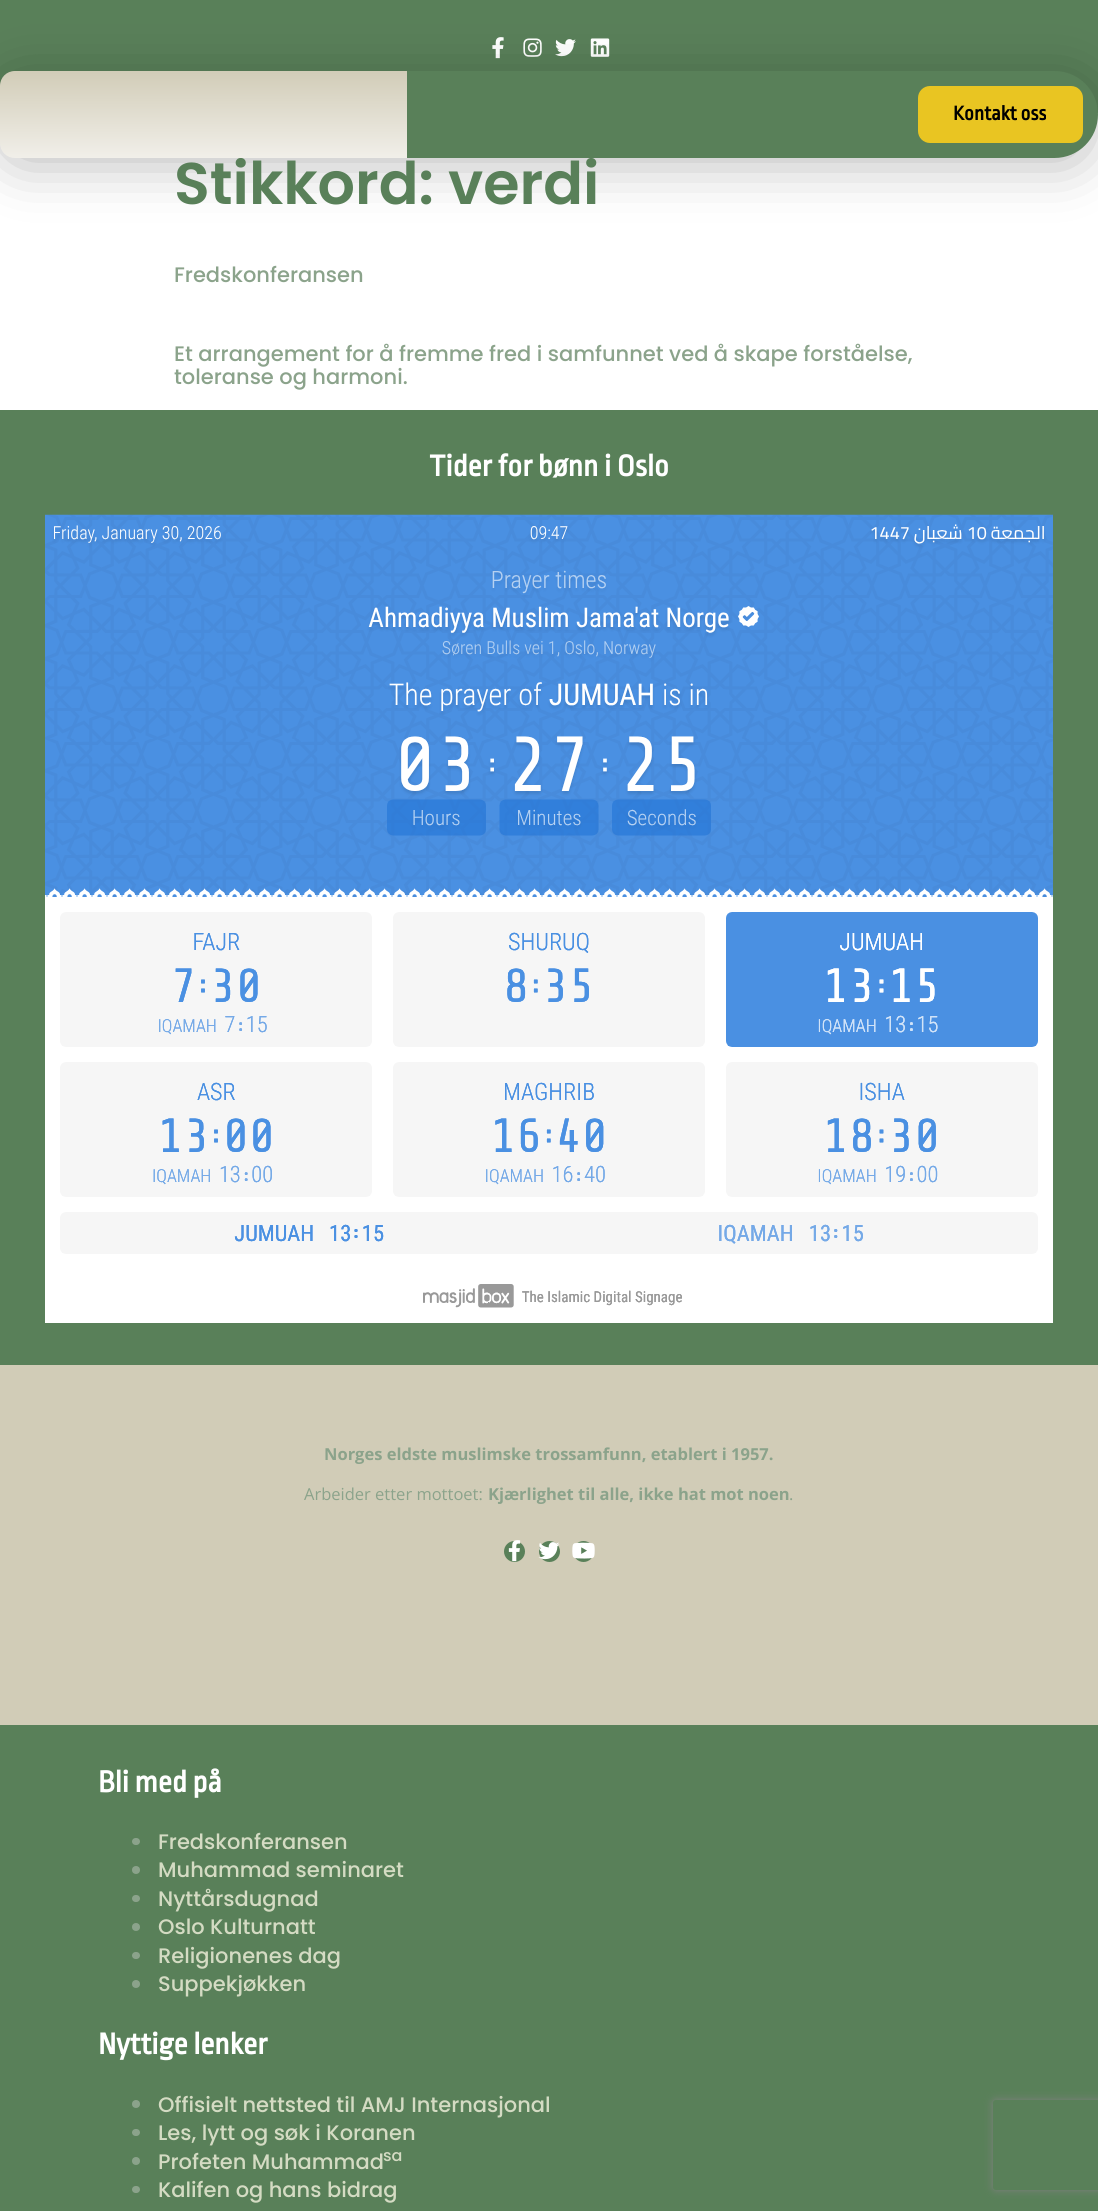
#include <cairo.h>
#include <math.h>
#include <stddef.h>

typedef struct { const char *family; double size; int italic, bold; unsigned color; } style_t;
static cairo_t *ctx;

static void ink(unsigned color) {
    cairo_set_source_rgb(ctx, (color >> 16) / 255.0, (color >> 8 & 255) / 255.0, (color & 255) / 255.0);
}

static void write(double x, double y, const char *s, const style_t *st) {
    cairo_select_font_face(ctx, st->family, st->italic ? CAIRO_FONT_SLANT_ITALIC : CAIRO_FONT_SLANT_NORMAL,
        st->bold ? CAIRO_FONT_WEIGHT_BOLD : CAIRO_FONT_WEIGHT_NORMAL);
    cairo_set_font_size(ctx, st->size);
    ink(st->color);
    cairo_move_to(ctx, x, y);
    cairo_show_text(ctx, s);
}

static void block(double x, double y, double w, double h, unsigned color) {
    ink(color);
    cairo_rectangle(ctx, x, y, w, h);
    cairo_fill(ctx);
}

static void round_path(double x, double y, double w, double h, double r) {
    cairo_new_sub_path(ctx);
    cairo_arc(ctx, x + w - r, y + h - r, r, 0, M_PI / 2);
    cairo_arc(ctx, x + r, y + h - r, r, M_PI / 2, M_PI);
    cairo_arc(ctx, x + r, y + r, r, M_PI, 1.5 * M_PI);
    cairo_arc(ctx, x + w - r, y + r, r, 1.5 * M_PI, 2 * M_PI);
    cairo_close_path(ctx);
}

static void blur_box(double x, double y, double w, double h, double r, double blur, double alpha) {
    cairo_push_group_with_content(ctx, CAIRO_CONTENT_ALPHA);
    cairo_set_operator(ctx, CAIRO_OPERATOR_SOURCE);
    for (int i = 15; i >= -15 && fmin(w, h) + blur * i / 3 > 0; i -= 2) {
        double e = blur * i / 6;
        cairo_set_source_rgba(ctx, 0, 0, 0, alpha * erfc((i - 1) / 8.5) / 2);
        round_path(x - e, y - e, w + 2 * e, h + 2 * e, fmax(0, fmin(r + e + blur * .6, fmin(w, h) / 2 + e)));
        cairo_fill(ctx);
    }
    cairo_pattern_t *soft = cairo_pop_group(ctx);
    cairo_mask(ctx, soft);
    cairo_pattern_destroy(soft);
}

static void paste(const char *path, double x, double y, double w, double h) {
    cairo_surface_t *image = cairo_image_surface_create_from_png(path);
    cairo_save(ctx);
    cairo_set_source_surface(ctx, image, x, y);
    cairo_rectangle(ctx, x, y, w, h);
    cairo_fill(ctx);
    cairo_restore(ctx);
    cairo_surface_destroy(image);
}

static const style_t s1 = {"Poppins SemiBold", 58.75, 0, 0, 0x598059};
static const style_t s2 = {"Ropa Sans", 21, 0, 1, 0x000000};
static const style_t s3 = {"Poppins Medium", 21, 0, 0, 0x8ba38b};
static const style_t s4 = {"Ropa Sans", 31.5, 0, 1, 0xffffff};
static const style_t s5 = {"Open Sans", 16.5, 0, 1, 0x8ba38b};
static const style_t s6 = {"Open Sans", 16.5, 0, 0, 0x8ba38b};
static const style_t s7 = {"Poppins Medium", 21, 0, 0, 0xd4dbc3};
static const style_t s8 = {"Poppins Medium", 16, 0, 0, 0xd4dbc3};

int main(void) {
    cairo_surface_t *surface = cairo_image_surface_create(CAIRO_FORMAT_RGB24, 1098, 2211);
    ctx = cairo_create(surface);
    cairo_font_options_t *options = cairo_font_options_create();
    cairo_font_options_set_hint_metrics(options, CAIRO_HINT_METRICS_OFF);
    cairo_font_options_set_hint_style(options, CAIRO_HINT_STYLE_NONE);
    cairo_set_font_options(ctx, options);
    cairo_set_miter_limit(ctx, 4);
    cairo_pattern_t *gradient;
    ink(0xffffff);
    cairo_paint(ctx);
    block(0, 0, 1098, 113, 0x598059);
    paste("pic1.png", 492, 37, 12, 22);
    paste("pic2.png", 523, 38, 19, 19);
    paste("pic3.png", 555, 39, 21, 18);
    paste("pic4.png", 590, 38, 20, 19);
    ink(0x000000);
    blur_box(5, 89, 1080, 69, 34.5, 30, 0.32);
    ink(0x598059);
    round_path(0, 71, 1098, 87, 43.5);
    cairo_fill(ctx);
    write(174, 204, "Stikkord: verdi", &s1);
    gradient = cairo_pattern_create_linear(203, 70, 203, 158);
    cairo_pattern_add_color_stop_rgba(gradient, 0, 0.82, 0.8, 0.718, 1);
    cairo_pattern_add_color_stop_rgba(gradient, 1, 0.945, 0.937, 0.914, 1);
    cairo_set_source(ctx, gradient);
    cairo_pattern_destroy(gradient);
    cairo_new_path(ctx);
    cairo_move_to(ctx, 15, 71);
    cairo_line_to(ctx, 407, 71);
    cairo_line_to(ctx, 407, 158);
    cairo_line_to(ctx, 15, 158);
    cairo_curve_to(ctx, 6.5, 158, 0, 151.5, 0, 143);
    cairo_line_to(ctx, 0, 86);
    cairo_curve_to(ctx, 0, 77.5, 6.5, 71, 15, 71);
    cairo_close_path(ctx);
    cairo_fill(ctx);
    ink(0xe9c522);
    round_path(918, 86, 165, 57, 12);
    cairo_fill(ctx);
    write(953, 120, "Kontakt oss", &s2);
    write(174, 282, "Fredskonferansen", &s3);
    write(174, 361, "Et arrangement for å fremme fred i samfunnet ved å skape forståelse,", &s3);
    write(174, 384, "toleranse og harmoni.", &s3);
    block(0, 410, 1098, 1801, 0x598059);
    write(429, 476, "Tider for bønn i Oslo", &s4);
    paste("pic5.png", 45, 514, 1008, 809);
    block(0, 1365, 1098, 360, 0xd1ccb7);
    write(324, 1460, "Norges eldste muslimske trossamfunn, etablert i 1957.", &s5);
    write(304, 1500, "Arbeider etter mottoet:", &s6);
    write(488, 1500, "Kjærlighet til alle, ikke hat mot noen", &s5);
    write(789, 1500, ".", &s6);
    ink(0x598059);
    cairo_new_path(ctx);
    cairo_arc(ctx, 514.5, 1551.5, 10.5, 0, 2 * M_PI);
    cairo_fill(ctx);
    paste("pic6.png", 508, 1540, 13, 22);
    cairo_arc(ctx, 549.5, 1551.5, 10.5, 0, 2 * M_PI);
    cairo_fill(ctx);
    paste("pic7.png", 538, 1542, 22, 18);
    cairo_arc(ctx, 583.5, 1551.5, 10.5, 0, 2 * M_PI);
    cairo_fill(ctx);
    paste("pic8.png", 572, 1542, 23, 17);
    write(98, 1792, "Bli med på", &s4);
    ink(0x8ba38b);
    round_path(132, 1838, 8, 7, 3.5);
    cairo_fill(ctx);
    write(158, 1849, "Fredskonferansen", &s7);
    ink(0x8ba38b);
    cairo_new_path(ctx);
    cairo_arc(ctx, 136, 1870, 4, 0, 2 * M_PI);
    cairo_fill(ctx);
    write(158, 1877, "Muhammad seminaret", &s7);
    ink(0x8ba38b);
    round_path(132, 1895, 8, 7, 3.5);
    cairo_fill(ctx);
    write(158, 1906, "Nyttårsdugnad", &s7);
    ink(0x8ba38b);
    cairo_new_path(ctx);
    cairo_arc(ctx, 136, 1927, 4, 0, 2 * M_PI);
    cairo_fill(ctx);
    write(158, 1934, "Oslo Kulturnatt", &s7);
    ink(0x8ba38b);
    round_path(132, 1952, 8, 7, 3.5);
    cairo_fill(ctx);
    write(158, 1963, "Religionenes dag", &s7);
    ink(0x8ba38b);
    cairo_new_path(ctx);
    cairo_arc(ctx, 136, 1984, 4, 0, 2 * M_PI);
    cairo_fill(ctx);
    write(158, 1991, "Suppekjøkken", &s7);
    write(98, 2054, "Nyttige lenker", &s4);
    ink(0x8ba38b);
    cairo_new_path(ctx);
    cairo_arc(ctx, 136, 2104, 4, 0, 2 * M_PI);
    cairo_fill(ctx);
    write(158, 2112, "Offisielt nettsted til AMJ Internasjonal", &s7);
    ink(0x8ba38b);
    round_path(132, 2129, 8, 7, 3.5);
    cairo_fill(ctx);
    write(158, 2140, "Les, lytt og søk i Koranen", &s7);
    ink(0x8ba38b);
    cairo_new_path(ctx);
    cairo_arc(ctx, 136, 2161, 4, 0, 2 * M_PI);
    cairo_fill(ctx);
    write(158, 2169, "Profeten Muhammad", &s7);
    write(383, 2161, "sa", &s8);
    ink(0x8ba38b);
    round_path(132, 2186, 8, 7, 3.5);
    cairo_fill(ctx);
    write(158, 2197, "Kalifen og hans bidrag", &s7);
    cairo_save(ctx);
    cairo_set_fill_rule(ctx, CAIRO_FILL_RULE_EVEN_ODD);
    cairo_new_path(ctx);
    cairo_move_to(ctx, 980, 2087);
    cairo_line_to(ctx, 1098, 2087);
    cairo_line_to(ctx, 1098, 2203);
    cairo_line_to(ctx, 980, 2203);
    cairo_close_path(ctx);
    cairo_move_to(ctx, 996, 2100);
    cairo_line_to(ctx, 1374, 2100);
    cairo_curve_to(ctx, 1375.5, 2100, 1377, 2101.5, 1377, 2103);
    cairo_line_to(ctx, 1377, 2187);
    cairo_curve_to(ctx, 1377, 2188.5, 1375.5, 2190, 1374, 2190);
    cairo_line_to(ctx, 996, 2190);
    cairo_curve_to(ctx, 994.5, 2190, 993, 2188.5, 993, 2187);
    cairo_line_to(ctx, 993, 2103);
    cairo_curve_to(ctx, 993, 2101.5, 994.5, 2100, 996, 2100);
    cairo_close_path(ctx);
    cairo_clip(ctx);
    ink(0x808080);
    blur_box(993, 2100, 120, 90, 3, 4, 1);
    cairo_restore(ctx);
    cairo_surface_write_to_png(surface, "screenshot.png");
    cairo_font_options_destroy(options);
    cairo_destroy(ctx);
    cairo_surface_destroy(surface);
    return 0;
}
